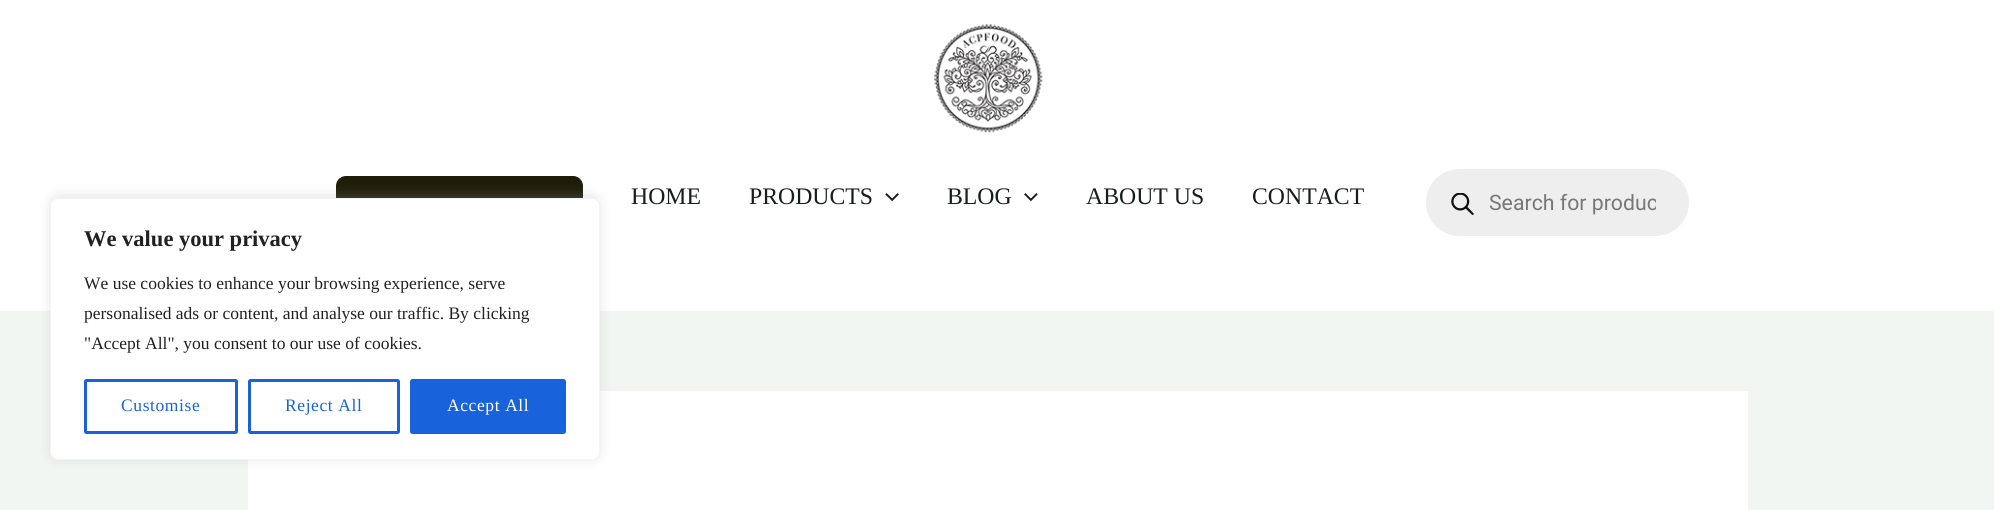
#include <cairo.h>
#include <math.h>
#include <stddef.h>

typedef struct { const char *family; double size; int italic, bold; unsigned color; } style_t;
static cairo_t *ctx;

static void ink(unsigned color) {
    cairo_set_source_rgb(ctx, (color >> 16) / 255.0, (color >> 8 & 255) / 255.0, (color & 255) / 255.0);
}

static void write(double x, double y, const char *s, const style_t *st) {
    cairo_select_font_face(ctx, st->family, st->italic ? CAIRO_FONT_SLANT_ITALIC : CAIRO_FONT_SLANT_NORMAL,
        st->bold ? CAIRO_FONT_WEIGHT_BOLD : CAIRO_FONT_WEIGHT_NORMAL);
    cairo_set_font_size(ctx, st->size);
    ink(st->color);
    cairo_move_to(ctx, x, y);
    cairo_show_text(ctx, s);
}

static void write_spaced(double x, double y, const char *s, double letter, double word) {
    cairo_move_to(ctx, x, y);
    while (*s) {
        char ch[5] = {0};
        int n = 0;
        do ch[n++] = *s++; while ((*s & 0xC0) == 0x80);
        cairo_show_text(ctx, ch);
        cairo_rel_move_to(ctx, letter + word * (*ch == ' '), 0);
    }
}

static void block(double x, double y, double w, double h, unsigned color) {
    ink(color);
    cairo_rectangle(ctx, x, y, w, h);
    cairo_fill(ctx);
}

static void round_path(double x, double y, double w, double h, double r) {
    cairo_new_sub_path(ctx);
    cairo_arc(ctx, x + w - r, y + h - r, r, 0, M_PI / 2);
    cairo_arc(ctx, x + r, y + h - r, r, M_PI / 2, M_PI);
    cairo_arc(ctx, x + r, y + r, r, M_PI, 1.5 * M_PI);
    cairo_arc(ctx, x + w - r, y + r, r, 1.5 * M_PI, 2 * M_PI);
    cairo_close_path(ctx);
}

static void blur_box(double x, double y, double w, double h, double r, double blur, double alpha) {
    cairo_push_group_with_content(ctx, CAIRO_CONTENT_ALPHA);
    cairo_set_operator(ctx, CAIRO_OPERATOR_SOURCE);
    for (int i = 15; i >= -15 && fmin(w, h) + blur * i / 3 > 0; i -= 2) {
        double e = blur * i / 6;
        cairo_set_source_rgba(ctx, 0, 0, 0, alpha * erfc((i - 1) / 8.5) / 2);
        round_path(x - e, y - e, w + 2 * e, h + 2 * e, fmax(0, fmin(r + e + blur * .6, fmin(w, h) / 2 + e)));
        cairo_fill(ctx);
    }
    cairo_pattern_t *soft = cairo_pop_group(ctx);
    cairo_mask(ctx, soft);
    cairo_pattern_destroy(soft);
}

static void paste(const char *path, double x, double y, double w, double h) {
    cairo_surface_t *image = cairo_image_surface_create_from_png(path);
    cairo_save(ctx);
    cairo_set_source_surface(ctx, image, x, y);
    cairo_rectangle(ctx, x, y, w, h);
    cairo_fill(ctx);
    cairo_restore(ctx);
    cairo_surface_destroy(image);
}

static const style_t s1 = {"Liberation Serif", 23.75, 0, 0, 0x181e19};
static const style_t s2 = {"Roboto", 21.25, 0, 0, 0x777777};
static const style_t s3 = {"Liberation Serif", 22.5, 0, 1, 0x212121};
static const style_t s4 = {"Liberation Serif", 17.5, 0, 0, 0x212121};

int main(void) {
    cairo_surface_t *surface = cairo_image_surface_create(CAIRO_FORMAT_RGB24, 1994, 510);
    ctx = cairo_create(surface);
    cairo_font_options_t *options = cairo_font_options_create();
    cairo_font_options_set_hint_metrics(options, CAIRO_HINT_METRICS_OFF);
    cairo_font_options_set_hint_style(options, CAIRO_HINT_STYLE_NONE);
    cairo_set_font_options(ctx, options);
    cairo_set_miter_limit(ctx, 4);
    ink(0xf1f6f2);
    cairo_paint(ctx);
    block(0, 0, 1994, 311, 0xffffff);
    paste("pic1.png", 933, 23, 110, 110);
    ink(0x1f1d08);
    round_path(336.5, 176.5, 246, 41, 9.5);
    cairo_fill_preserve(ctx);
    cairo_set_line_width(ctx, 1);
    cairo_stroke(ctx);
    write(631, 204, "HOME", &s1);
    write(749, 204, "PRODUCTS", &s1);
    paste("pic2.png", 885, 193, 14, 9);
    write(947, 204, "BLOG", &s1);
    paste("pic3.png", 1024, 193, 14, 9);
    write(1086, 204, "ABOUT US", &s1);
    write(1252, 204, "CONTACT", &s1);
    ink(0xeeeeee);
    round_path(1426, 169, 263, 67, 33.5);
    cairo_fill(ctx);
    paste("pic4.png", 1451, 193, 23, 22);
    cairo_save(ctx);
    cairo_rectangle(ctx, 1489, 190, 167, 25);
    cairo_clip(ctx);
    write(1489, 210, "Search for produc", &s2);
    cairo_restore(ctx);
    block(248, 391, 1500, 119, 0xffffff);
    ink(0xacabab);
    blur_box(50, 196, 550, 263, 8, 6, 0.3);
    ink(0xffffff);
    round_path(50.5, 198.5, 549, 261, 7.5);
    cairo_fill_preserve(ctx);
    ink(0xf4f4f4);
    cairo_stroke(ctx);
    write(84, 246, "We value your privacy", &s3);
    write(84, 289, "We use cookies to enhance your browsing experience, serve", &s4);
    write(84, 319, "personalised ads or content, and analyse our traffic. By clicking", &s4);
    write(84, 349, "\"Accept All\", you consent to our use of cookies.", &s4);
    round_path(85.5, 380.5, 151, 52, 1);
    ink(0x1863dc);
    cairo_set_line_width(ctx, 3);
    cairo_stroke(ctx);
    write_spaced(121, 411, "Customise", 0.6, 0);
    round_path(249.5, 380.5, 149, 52, 1);
    cairo_stroke(ctx);
    write_spaced(285, 411, "Reject All", 0.6, 0);
    round_path(411.5, 380.5, 153, 52, 1);
    cairo_fill_preserve(ctx);
    cairo_stroke(ctx);
    ink(0xffffff);
    write_spaced(447, 411, "Accept All", 0.6, 0);
    cairo_surface_write_to_png(surface, "screenshot.png");
    cairo_font_options_destroy(options);
    cairo_destroy(ctx);
    cairo_surface_destroy(surface);
    return 0;
}
